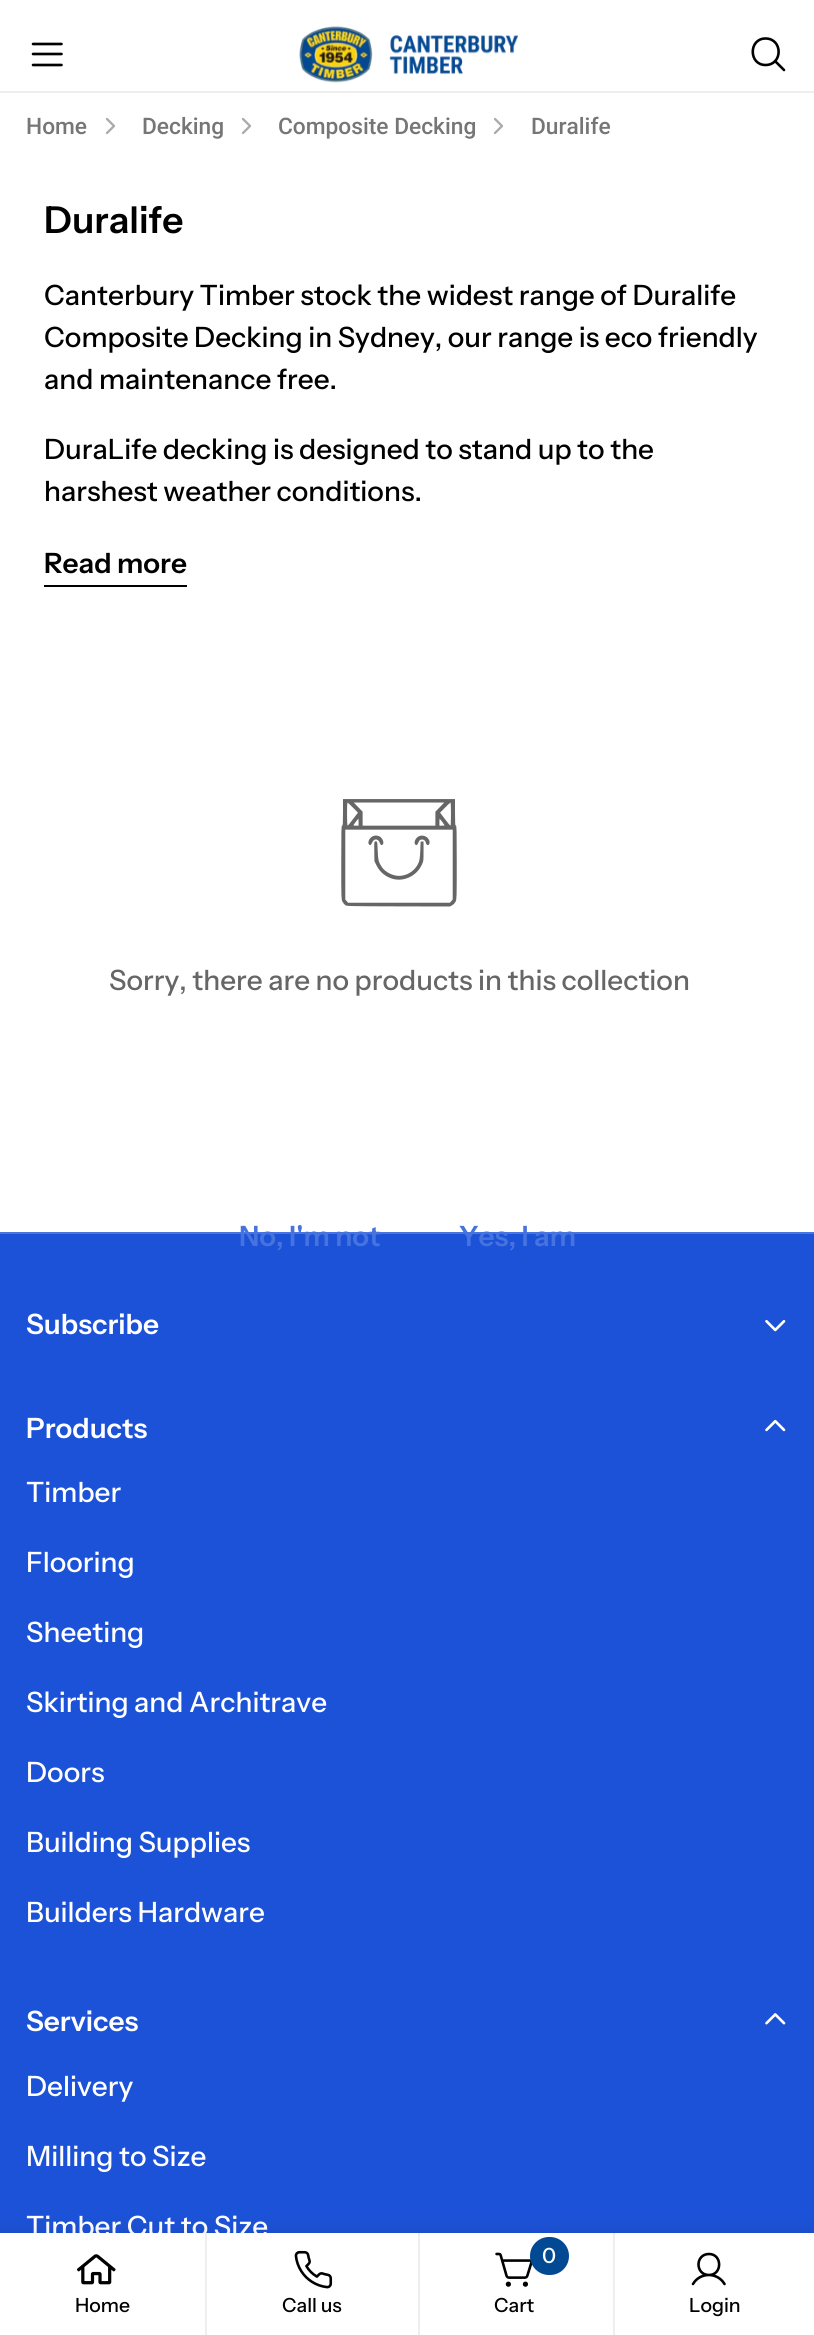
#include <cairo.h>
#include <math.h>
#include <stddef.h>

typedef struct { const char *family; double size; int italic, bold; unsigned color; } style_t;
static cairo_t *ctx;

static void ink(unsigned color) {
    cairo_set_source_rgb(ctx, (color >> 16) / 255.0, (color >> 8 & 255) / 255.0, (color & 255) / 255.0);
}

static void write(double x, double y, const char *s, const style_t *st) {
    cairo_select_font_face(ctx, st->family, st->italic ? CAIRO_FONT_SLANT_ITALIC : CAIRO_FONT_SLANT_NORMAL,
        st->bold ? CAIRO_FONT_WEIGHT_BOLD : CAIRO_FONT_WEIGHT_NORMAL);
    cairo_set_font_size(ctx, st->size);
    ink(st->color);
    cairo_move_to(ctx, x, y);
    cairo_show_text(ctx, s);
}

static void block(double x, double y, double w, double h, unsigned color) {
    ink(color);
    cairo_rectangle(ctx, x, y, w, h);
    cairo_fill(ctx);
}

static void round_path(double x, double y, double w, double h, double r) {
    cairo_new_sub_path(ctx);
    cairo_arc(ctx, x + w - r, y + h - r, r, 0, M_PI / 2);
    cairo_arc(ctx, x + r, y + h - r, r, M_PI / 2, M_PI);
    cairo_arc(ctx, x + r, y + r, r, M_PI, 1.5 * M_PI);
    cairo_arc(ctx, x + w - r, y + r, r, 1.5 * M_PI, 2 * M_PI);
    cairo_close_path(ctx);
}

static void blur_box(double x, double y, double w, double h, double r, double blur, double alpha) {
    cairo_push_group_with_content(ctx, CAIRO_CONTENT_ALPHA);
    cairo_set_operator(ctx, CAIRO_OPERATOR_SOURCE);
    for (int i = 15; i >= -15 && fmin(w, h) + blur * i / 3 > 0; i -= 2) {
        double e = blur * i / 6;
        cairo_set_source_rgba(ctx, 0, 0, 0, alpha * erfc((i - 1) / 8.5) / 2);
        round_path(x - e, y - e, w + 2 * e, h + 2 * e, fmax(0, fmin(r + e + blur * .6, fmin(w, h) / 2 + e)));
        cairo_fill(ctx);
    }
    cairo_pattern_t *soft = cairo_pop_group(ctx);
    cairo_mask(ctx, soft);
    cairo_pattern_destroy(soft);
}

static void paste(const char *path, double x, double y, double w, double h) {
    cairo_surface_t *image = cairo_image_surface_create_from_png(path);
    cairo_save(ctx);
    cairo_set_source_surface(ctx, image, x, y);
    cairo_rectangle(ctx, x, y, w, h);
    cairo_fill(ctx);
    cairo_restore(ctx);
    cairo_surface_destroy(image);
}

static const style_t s1 = {"Roboto Medium", 22.75, 0, 0, 0x767676};
static const style_t s2 = {"Instrument Sans SemiBold", 37, 0, 0, 0x000000};
static const style_t s3 = {"Instrument Sans Medium", 28, 0, 0, 0x000000};
static const style_t s4 = {"Instrument Sans SemiBold", 28, 0, 0, 0x000000};
static const style_t s5 = {"Instrument Sans Medium", 28, 0, 0, 0x666666};
static const style_t s6 = {"Instrument Sans SemiBold", 28, 0, 0, 0x4773df};
static const style_t s7 = {"Instrument Sans SemiBold", 28, 0, 0, 0xffffff};
static const style_t s8 = {"Instrument Sans Medium", 28, 0, 0, 0xffffff};
static const style_t s9 = {"Instrument Sans Medium", 19.5, 0, 0, 0x000000};
static const style_t s10 = {"Instrument Sans Medium", 21, 0, 0, 0xffffff};

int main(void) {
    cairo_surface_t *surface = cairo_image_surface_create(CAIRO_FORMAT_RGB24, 814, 2335);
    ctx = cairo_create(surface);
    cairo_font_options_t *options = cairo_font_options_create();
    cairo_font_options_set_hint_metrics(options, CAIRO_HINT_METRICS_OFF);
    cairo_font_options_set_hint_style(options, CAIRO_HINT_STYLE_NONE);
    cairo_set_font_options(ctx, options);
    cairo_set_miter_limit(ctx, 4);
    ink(0xffffff);
    cairo_paint(ctx);
    block(0, 91, 814, 2, 0xeeeeee);
    cairo_new_path(ctx);
    cairo_move_to(ctx, 33, 54);
    cairo_line_to(ctx, 61.5, 54);
    cairo_move_to(ctx, 33, 44);
    cairo_line_to(ctx, 61.5, 44);
    cairo_move_to(ctx, 33, 65);
    cairo_line_to(ctx, 61.5, 65);
    ink(0x000000);
    cairo_set_line_width(ctx, 2.6);
    cairo_set_line_cap(ctx, CAIRO_LINE_CAP_ROUND);
    cairo_set_line_join(ctx, CAIRO_LINE_JOIN_ROUND);
    cairo_stroke(ctx);
    paste("pic1.png", 299, 26, 219, 57);
    cairo_new_path(ctx);
    cairo_move_to(ctx, 765.5, 65);
    cairo_curve_to(ctx, 783, 65, 783, 38.5, 765.5, 38.5);
    cairo_curve_to(ctx, 748.5, 38.5, 748.5, 65, 765.5, 65);
    cairo_close_path(ctx);
    cairo_move_to(ctx, 775, 61);
    cairo_line_to(ctx, 784, 70);
    cairo_stroke(ctx);
    write(26, 134, "Home", &s1);
    cairo_new_path(ctx);
    cairo_move_to(ctx, 107, 133);
    cairo_line_to(ctx, 114, 126);
    cairo_line_to(ctx, 107, 119);
    ink(0xaaaaaa);
    cairo_set_line_width(ctx, 2.3);
    cairo_stroke(ctx);
    write(142, 134, "Decking", &s1);
    cairo_new_path(ctx);
    cairo_move_to(ctx, 243, 133);
    cairo_line_to(ctx, 250, 126);
    cairo_line_to(ctx, 243, 119);
    ink(0xaaaaaa);
    cairo_stroke(ctx);
    write(278, 134, "Composite Decking", &s1);
    cairo_new_path(ctx);
    cairo_move_to(ctx, 495, 133);
    cairo_line_to(ctx, 502, 126);
    cairo_line_to(ctx, 495, 119);
    ink(0xaaaaaa);
    cairo_stroke(ctx);
    write(531, 134, "Duralife", &s1);
    write(44, 233, "Duralife", &s2);
    write(44, 305, "Canterbury Timber stock the widest range of Duralife", &s3);
    write(44, 347, "Composite Decking in Sydney, our range is eco friendly", &s3);
    write(44, 389, "and maintenance free.", &s3);
    write(44, 459, "DuraLife decking is designed to stand up to the", &s3);
    write(44, 501, "harshest weather conditions.", &s3);
    write(44, 573, "Read more", &s4);
    block(44, 585, 143, 2, 0x000000);
    paste("pic2.png", 341, 799, 116, 108);
    write(109, 990, "Sorry, there are no products in this collection", &s5);
    block(0, 1234, 814, 999, 0x1c52d7);
    block(0, 1232, 814, 2, 0x4975df);
    write(239, 1246, "No, I'm not", &s6);
    write(459, 1246, "Yes, I am", &s6);
    write(26, 1334, "Subscribe", &s7);
    paste("pic3.png", 765, 1319, 21, 13);
    write(26, 1438, "Products", &s7);
    paste("pic4.png", 765, 1419, 21, 13);
    write(26, 1502, "Timber", &s8);
    write(26, 1572, "Flooring", &s8);
    write(26, 1642, "Sheeting", &s8);
    write(26, 1712, "Skirting and Architrave", &s8);
    write(26, 1782, "Doors", &s8);
    write(26, 1852, "Building Supplies", &s8);
    write(26, 1922, "Builders Hardware", &s8);
    write(26, 2031, "Services", &s7);
    paste("pic5.png", 765, 2013, 21, 12);
    write(26, 2096, "Delivery", &s8);
    write(26, 2166, "Milling to Size", &s8);
    write(26, 2236, "Timber Cut to Size", &s8);
    ink(0x000000);
    blur_box(0, 2233, 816, 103, 0, 9, 0.11);
    block(0, 2233, 814, 102, 0xffffff);
    block(205, 2233, 2, 102, 0xeeeeee);
    paste("pic6.png", 76, 2254, 40, 31);
    write(75, 2312, "Home", &s9);
    block(418, 2233, 2, 102, 0xeeeeee);
    paste("pic7.png", 294, 2250, 39, 39);
    write(282, 2312, "Call us", &s9);
    block(613, 2233, 2, 102, 0xeeeeee);
    paste("pic8.png", 495, 2252, 38, 35);
    ink(0x024993);
    round_path(530, 2237, 39, 38, 19);
    cairo_fill(ctx);
    write(542, 2263, "0", &s10);
    write(494, 2312, "Cart", &s9);
    cairo_new_path(ctx);
    cairo_move_to(ctx, 709, 2275);
    cairo_curve_to(ctx, 722.5, 2275, 722.5, 2254, 709, 2254);
    cairo_curve_to(ctx, 695, 2254, 695, 2275, 709, 2275);
    cairo_close_path(ctx);
    cairo_move_to(ctx, 693, 2284);
    cairo_curve_to(ctx, 700, 2272, 717.5, 2272, 724.5, 2284);
    cairo_set_line_width(ctx, 2.6);
    cairo_stroke(ctx);
    write(689, 2312, "Login", &s9);
    cairo_surface_write_to_png(surface, "screenshot.png");
    cairo_font_options_destroy(options);
    cairo_destroy(ctx);
    cairo_surface_destroy(surface);
    return 0;
}
